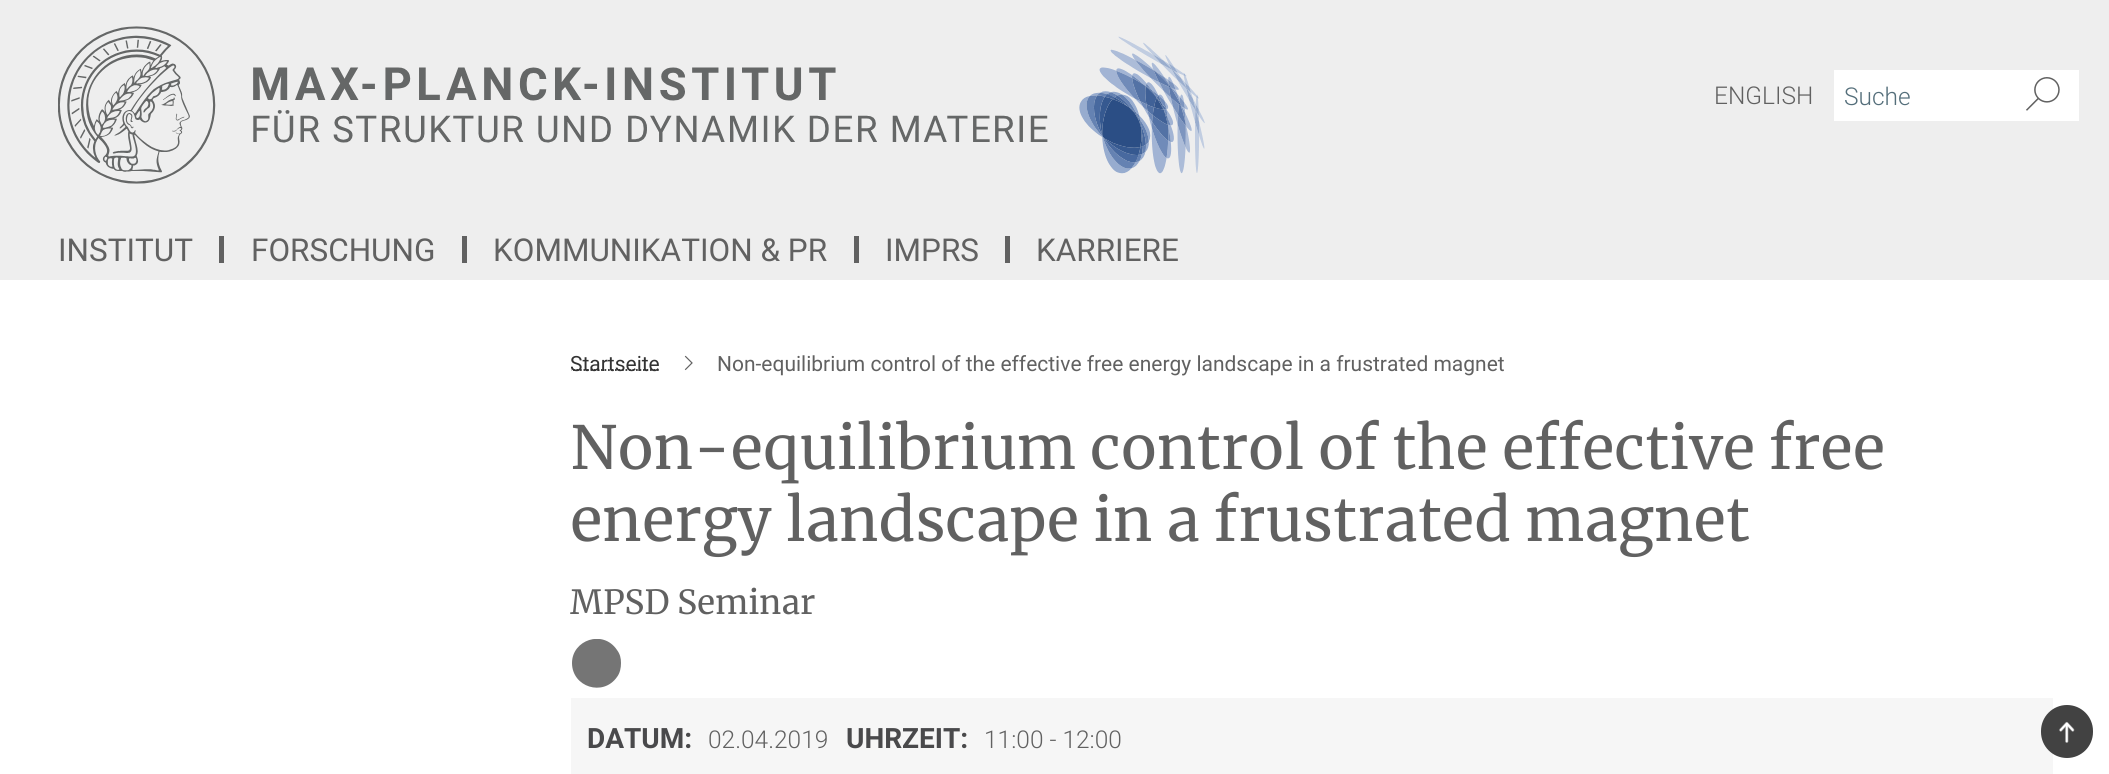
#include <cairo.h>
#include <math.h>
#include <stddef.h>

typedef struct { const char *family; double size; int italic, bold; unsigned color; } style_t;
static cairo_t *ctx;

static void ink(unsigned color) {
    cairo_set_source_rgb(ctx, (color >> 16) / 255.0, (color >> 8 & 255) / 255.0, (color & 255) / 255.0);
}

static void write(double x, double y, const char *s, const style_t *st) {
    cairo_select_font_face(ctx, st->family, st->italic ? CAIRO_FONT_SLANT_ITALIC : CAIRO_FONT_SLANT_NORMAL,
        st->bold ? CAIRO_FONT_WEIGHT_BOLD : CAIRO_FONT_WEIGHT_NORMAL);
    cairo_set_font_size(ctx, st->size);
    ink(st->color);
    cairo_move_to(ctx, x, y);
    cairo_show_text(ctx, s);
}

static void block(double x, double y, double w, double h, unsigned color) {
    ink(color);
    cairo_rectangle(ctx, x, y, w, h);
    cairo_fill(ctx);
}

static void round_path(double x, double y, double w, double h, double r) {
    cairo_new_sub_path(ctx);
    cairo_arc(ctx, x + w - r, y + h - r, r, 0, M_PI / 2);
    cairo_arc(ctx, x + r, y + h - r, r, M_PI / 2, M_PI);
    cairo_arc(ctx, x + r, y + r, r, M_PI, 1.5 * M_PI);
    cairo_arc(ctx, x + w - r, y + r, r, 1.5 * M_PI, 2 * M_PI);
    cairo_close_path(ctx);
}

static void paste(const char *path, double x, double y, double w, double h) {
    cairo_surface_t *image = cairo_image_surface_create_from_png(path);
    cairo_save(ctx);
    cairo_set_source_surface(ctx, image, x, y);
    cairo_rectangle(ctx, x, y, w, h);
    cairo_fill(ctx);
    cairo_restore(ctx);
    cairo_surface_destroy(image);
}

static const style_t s1 = {"Roboto Light", 24.5, 0, 0, 0x616161};
static const style_t s2 = {"Roboto Light", 24.5, 0, 0, 0x546e7a};
static const style_t s3 = {"Roboto", 31.5, 0, 0, 0x616161};
static const style_t s4 = {"Roboto", 21, 0, 0, 0x333333};
static const style_t s5 = {"Roboto", 21, 0, 0, 0x616161};
static const style_t s6 = {"Merriweather", 59.5, 0, 0, 0x616161};
static const style_t s7 = {"Merriweather", 33.25, 0, 0, 0x616161};
static const style_t s8 = {"Roboto", 28, 0, 1, 0x49494b};

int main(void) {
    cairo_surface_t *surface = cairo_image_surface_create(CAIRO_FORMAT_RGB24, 2109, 774);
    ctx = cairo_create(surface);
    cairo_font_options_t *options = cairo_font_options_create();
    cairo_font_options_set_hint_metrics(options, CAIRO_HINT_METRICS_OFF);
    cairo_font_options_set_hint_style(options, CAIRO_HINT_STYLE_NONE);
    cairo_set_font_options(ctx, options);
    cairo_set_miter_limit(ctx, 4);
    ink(0xffffff);
    cairo_paint(ctx);
    block(0, 0, 2109, 280, 0xeeeeee);
    paste("pic1.png", 58, 26, 1147, 158);
    write(1714, 104, "ENGLISH", &s1);
    block(1834, 70, 245, 51, 0xffffff);
    write(1844, 105, "Suche", &s2);
    paste("pic2.png", 2026, 77, 34, 34);
    block(219, 236, 5, 27, 0x616161);
    write(58, 261, "INSTITUT", &s3);
    block(462, 236, 5, 27, 0x616161);
    write(251, 261, "FORSCHUNG", &s3);
    block(854, 236, 5, 27, 0x616161);
    write(493, 261, "KOMMUNIKATION & PR", &s3);
    block(1005, 236, 5, 27, 0x616161);
    write(885, 261, "IMPRS", &s3);
    write(1036, 261, "KARRIERE", &s3);
    cairo_save(ctx);
    cairo_rectangle(ctx, 571, 310, 1482, 103);
    cairo_clip(ctx);
    cairo_new_path(ctx);
    cairo_move_to(ctx, 569.5, 370);
    cairo_line_to(ctx, 659.5, 370);
    ink(0x333333);
    cairo_set_line_width(ctx, 1.8);
    cairo_set_dash(ctx, (double[]){1.75, 1.75}, 2, 0);
    cairo_stroke(ctx);
    write(570, 371, "Startseite", &s4);
    cairo_restore(ctx);
    paste("pic3.png", 684, 355, 9, 16);
    write(717, 371, "Non-equilibrium control of the effective free energy landscape in a frustrated magnet", &s5);
    write(570, 469, "Non-equilibrium control of the effective free", &s6);
    write(570, 541, "energy landscape in a frustrated magnet", &s6);
    write(570, 614, "MPSD Seminar", &s7);
    cairo_save(ctx);
    cairo_rectangle(ctx, 572, 639, 49, 49);
    cairo_clip(ctx);
    ink(0x757575);
    cairo_new_path(ctx);
    cairo_move_to(ctx, 621, 663);
    cairo_curve_to(ctx, 621, 668, 620, 673, 617, 677);
    cairo_curve_to(ctx, 603, 697, 572, 687, 572, 663);
    cairo_curve_to(ctx, 572, 640, 603, 629, 617, 650);
    cairo_curve_to(ctx, 620, 654, 621, 658, 621, 663);
    cairo_close_path(ctx);
    cairo_fill(ctx);
    cairo_restore(ctx);
    block(571, 698, 1482, 76, 0xf6f6f6);
    write(587, 748, "DATUM:", &s8);
    write(708, 748, "02.04.2019", &s1);
    write(846, 748, "UHRZEIT:", &s8);
    write(984, 748, "11:00 - 12:00", &s1);
    ink(0x424242);
    round_path(2041, 705, 52, 53, 26);
    cairo_fill(ctx);
    paste("pic4.png", 2059, 721, 16, 22);
    cairo_surface_write_to_png(surface, "screenshot.png");
    cairo_font_options_destroy(options);
    cairo_destroy(ctx);
    cairo_surface_destroy(surface);
    return 0;
}
